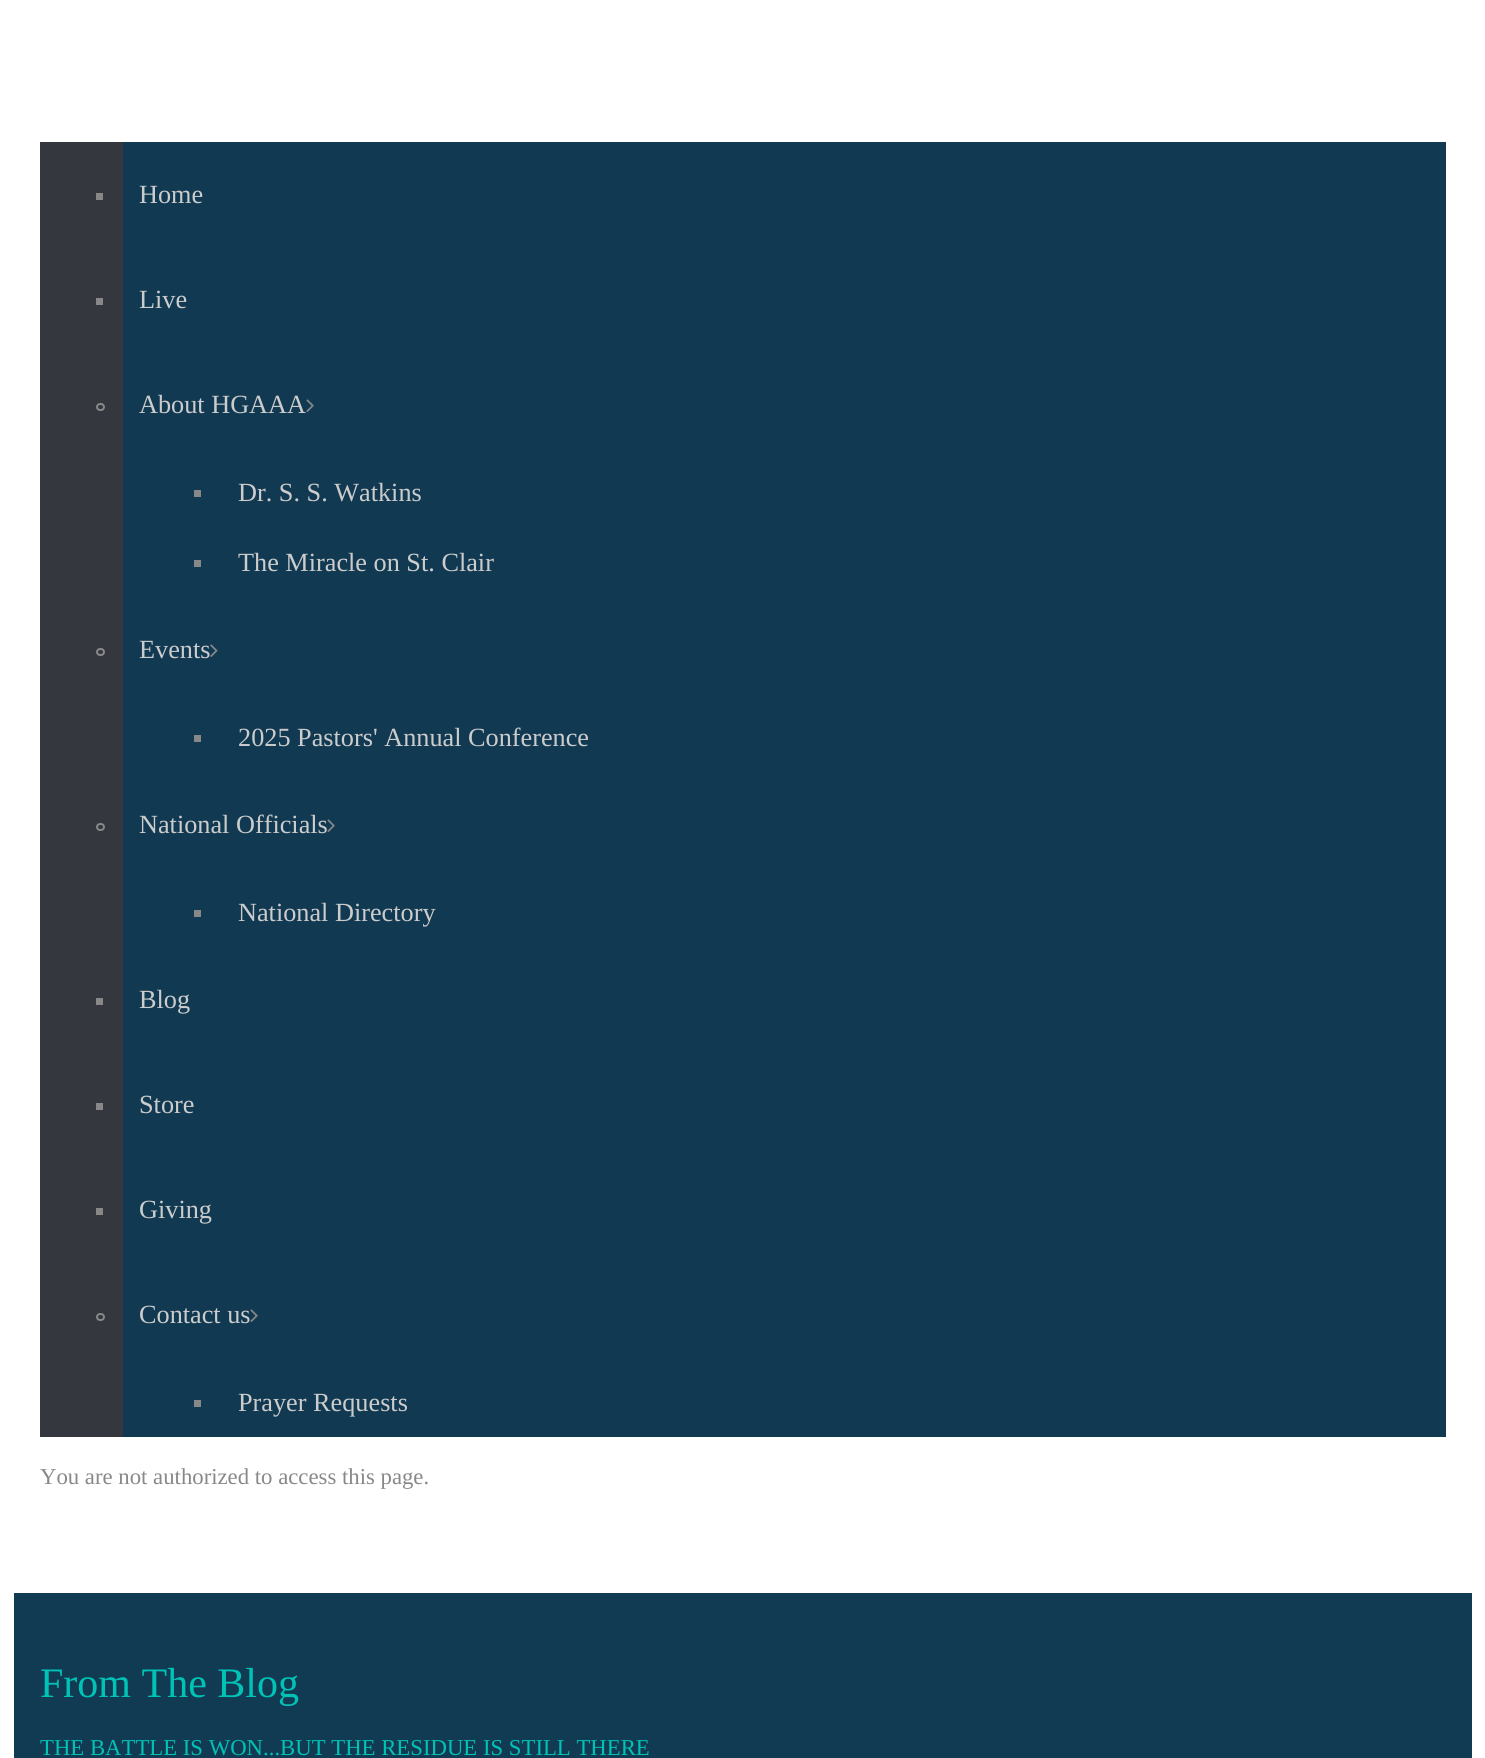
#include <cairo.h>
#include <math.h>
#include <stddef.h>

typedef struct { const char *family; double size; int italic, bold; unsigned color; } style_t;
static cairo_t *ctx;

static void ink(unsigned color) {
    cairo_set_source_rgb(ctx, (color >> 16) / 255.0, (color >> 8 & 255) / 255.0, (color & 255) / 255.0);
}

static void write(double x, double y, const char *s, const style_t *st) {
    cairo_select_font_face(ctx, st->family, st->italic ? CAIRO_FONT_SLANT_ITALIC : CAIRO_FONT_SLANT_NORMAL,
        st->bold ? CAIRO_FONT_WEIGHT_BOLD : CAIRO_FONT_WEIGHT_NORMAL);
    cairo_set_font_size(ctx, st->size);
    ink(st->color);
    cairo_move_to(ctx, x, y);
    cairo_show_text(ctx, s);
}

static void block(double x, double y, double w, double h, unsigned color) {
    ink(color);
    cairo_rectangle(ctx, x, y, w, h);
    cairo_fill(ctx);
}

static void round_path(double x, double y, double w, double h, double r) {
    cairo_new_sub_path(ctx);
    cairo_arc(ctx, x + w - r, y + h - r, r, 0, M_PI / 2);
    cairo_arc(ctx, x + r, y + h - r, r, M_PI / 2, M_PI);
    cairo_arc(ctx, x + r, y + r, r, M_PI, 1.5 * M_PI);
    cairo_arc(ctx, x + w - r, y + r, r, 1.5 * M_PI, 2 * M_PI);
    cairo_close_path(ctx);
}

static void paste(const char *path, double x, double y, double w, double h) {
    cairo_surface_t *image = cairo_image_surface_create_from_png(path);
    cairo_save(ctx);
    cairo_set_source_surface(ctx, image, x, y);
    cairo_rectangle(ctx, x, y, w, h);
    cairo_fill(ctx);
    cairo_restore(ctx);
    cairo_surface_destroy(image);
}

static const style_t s1 = {"Liberation Serif", 26.25, 0, 0, 0xcccccc};
static const style_t s2 = {"Liberation Serif", 22.75, 0, 0, 0x888888};
static const style_t s3 = {"Liberation Serif", 42, 0, 0, 0x00c3b6};
static const style_t s4 = {"Liberation Serif", 22.75, 0, 0, 0x00c3b6};

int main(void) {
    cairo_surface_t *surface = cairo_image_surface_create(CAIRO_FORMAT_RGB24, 1485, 1758);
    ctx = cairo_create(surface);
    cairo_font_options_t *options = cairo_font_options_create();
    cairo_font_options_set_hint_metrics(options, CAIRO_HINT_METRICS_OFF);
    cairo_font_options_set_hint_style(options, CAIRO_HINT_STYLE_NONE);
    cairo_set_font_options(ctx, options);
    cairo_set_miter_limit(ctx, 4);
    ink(0xffffff);
    cairo_paint(ctx);
    block(40, 142, 83, 1295, 0x34373e);
    block(123, 142, 1323, 1295, 0x113a52);
    block(96, 193, 7, 7, 0x888888);
    write(139, 203, "Home", &s1);
    block(96, 298, 7, 7, 0x888888);
    write(139, 308, "Live", &s1);
    round_path(97, 404, 7, 6, 3);
    ink(0x888888);
    cairo_stroke(ctx);
    write(139, 413, "About HGAAA", &s1);
    paste("pic1.png", 306, 399, 8, 13);
    block(194, 490, 7, 7, 0x888888);
    write(238, 501, "Dr. S. S. Watkins", &s1);
    block(194, 560, 7, 7, 0x888888);
    write(238, 571, "The Miracle on St. Clair", &s1);
    round_path(97, 649, 7, 6, 3);
    ink(0x888888);
    cairo_stroke(ctx);
    write(139, 658, "Events", &s1);
    paste("pic2.png", 210, 644, 8, 13);
    block(194, 735, 7, 7, 0x888888);
    write(238, 746, "2025 Pastors' Annual Conference", &s1);
    round_path(97, 824, 7, 6, 3);
    ink(0x888888);
    cairo_stroke(ctx);
    write(139, 833, "National Officials", &s1);
    paste("pic1.png", 327, 819, 8, 13);
    block(194, 910, 7, 7, 0x888888);
    write(238, 921, "National Directory", &s1);
    block(96, 998, 7, 7, 0x888888);
    write(139, 1008, "Blog", &s1);
    block(96, 1103, 7, 7, 0x888888);
    write(139, 1113, "Store", &s1);
    block(96, 1208, 7, 7, 0x888888);
    write(139, 1218, "Giving", &s1);
    round_path(97, 1314, 7, 6, 3);
    ink(0x888888);
    cairo_stroke(ctx);
    write(139, 1323, "Contact us", &s1);
    paste("pic1.png", 250, 1309, 8, 13);
    block(194, 1400, 7, 7, 0x888888);
    write(238, 1411, "Prayer Requests", &s1);
    write(40, 1484, "You are not authorized to access this page.", &s2);
    block(14, 1593, 1458, 165, 0x113b53);
    write(40, 1697, "From The Blog", &s3);
    write(40, 1755, "THE BATTLE IS WON...BUT THE RESIDUE IS STILL THERE", &s4);
    cairo_surface_write_to_png(surface, "screenshot.png");
    cairo_font_options_destroy(options);
    cairo_destroy(ctx);
    cairo_surface_destroy(surface);
    return 0;
}
